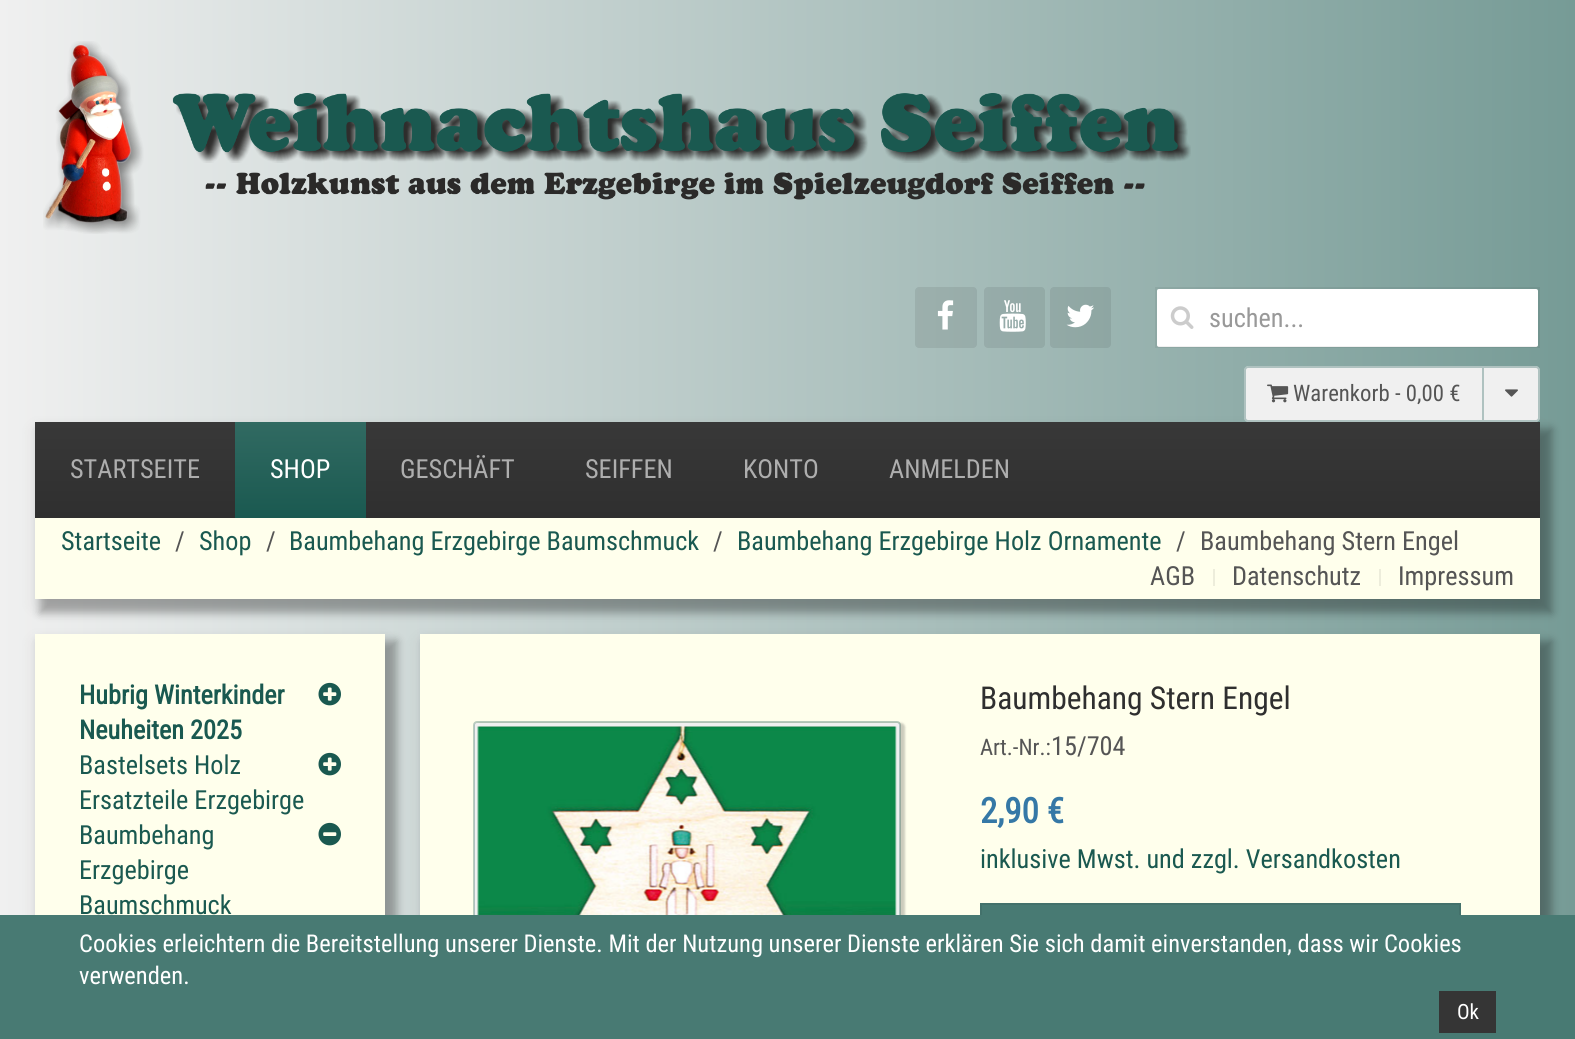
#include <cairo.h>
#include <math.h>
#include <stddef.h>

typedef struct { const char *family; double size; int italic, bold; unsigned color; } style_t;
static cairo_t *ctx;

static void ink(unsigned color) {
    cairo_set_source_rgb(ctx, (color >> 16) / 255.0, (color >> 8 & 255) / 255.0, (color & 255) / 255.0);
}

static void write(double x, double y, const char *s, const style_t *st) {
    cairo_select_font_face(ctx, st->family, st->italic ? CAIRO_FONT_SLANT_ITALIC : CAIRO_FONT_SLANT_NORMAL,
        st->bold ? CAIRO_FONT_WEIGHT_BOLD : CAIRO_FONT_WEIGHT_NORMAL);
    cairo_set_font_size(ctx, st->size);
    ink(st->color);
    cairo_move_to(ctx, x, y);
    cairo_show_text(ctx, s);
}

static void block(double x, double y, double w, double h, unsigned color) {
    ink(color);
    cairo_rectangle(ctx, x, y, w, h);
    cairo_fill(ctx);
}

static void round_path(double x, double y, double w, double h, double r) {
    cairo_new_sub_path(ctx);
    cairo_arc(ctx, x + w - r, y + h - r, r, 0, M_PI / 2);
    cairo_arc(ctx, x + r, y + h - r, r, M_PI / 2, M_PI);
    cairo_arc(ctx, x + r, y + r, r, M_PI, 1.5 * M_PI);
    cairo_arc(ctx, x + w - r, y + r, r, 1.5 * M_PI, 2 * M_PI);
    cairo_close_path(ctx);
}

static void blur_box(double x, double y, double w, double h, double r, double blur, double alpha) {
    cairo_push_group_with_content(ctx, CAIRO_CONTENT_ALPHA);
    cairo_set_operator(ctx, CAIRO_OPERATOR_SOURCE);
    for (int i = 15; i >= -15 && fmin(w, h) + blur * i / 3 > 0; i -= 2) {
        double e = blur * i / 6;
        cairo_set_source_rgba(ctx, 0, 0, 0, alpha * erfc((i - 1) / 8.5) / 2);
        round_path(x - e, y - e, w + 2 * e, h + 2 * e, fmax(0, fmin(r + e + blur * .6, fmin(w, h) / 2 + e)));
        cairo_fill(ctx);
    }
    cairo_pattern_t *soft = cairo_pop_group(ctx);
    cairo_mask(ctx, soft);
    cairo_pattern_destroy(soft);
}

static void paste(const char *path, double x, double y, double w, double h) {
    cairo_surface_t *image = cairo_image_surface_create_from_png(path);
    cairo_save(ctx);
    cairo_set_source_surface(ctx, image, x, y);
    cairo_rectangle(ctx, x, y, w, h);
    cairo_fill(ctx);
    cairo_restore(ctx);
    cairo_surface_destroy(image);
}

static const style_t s1 = {"Roboto Condensed", 26.25, 0, 0, 0x999999};
static const style_t s2 = {"Roboto Condensed", 22.75, 0, 0, 0x555555};
static const style_t s3 = {"Roboto Condensed", 26.25, 0, 0, 0xaeaeae};
static const style_t s4 = {"Roboto Condensed", 26.25, 0, 0, 0xffffff};
static const style_t s5 = {"Roboto Condensed", 26.25, 0, 0, 0x1a5950};
static const style_t s6 = {"Roboto Condensed", 26.25, 0, 0, 0x555555};
static const style_t s7 = {"Roboto Condensed", 26.25, 0, 1, 0x1a5950};
static const style_t s8 = {"Roboto Condensed", 31.5, 0, 0, 0x2f2f2f};
static const style_t s9 = {"Roboto Condensed", 35, 0, 1, 0x3578a6};
static const style_t s10 = {"Roboto Condensed", 24.5, 0, 0, 0xffffff};
static const style_t s11 = {"Roboto Condensed", 21, 0, 0, 0xffffff};

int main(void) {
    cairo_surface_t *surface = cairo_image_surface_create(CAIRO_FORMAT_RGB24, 1575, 1039);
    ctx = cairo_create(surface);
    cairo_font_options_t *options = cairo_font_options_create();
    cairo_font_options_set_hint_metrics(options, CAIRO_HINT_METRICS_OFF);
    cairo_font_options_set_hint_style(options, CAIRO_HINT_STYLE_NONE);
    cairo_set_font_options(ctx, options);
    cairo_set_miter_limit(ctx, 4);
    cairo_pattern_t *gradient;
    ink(0xffffff);
    cairo_paint(ctx);
    gradient = cairo_pattern_create_linear(0, 520, 1575, 520);
    cairo_pattern_add_color_stop_rgba(gradient, 0, 0.941, 0.941, 0.941, 1);
    cairo_pattern_add_color_stop_rgba(gradient, 1, 0.463, 0.608, 0.588, 1);
    cairo_set_source(ctx, gradient);
    cairo_pattern_destroy(gradient);
    cairo_rectangle(ctx, 0, 0, 1575, 915);
    cairo_fill(ctx);
    paste("pic1.png", 43, 41, 1148, 193);
    cairo_set_source_rgba(ctx, 0, 0, 0, 0.08);
    round_path(915, 287, 62, 61, 4);
    cairo_fill(ctx);
    paste("pic2.png", 937, 300, 17, 30);
    round_path(984, 287, 61, 61, 4);
    cairo_fill(ctx);
    paste("pic3.png", 999, 300, 27, 32);
    round_path(1050, 287, 61, 61, 4);
    cairo_fill(ctx);
    paste("pic4.png", 1066, 304, 28, 24);
    ink(0xffffff);
    round_path(1157, 289, 381, 58, 2);
    cairo_fill(ctx);
    cairo_rectangle(ctx, 1156, 288, 383, 59);
    cairo_set_source_rgba(ctx, 0, 0, 0, 0.06);
    cairo_stroke(ctx);
    paste("pic5.png", 1170, 306, 24, 23);
    write(1209, 327, "suchen...", &s1);
    ink(0x000000);
    blur_box(35, 429, 1505, 177, 0, 9, 0.06);
    blur_box(40, 429, 1512, 184, 0, 4.5, 0.3);
    ink(0xf0f0f0);
    cairo_new_path(ctx);
    cairo_move_to(ctx, 1248, 366);
    cairo_line_to(ctx, 1484, 366);
    cairo_line_to(ctx, 1484, 422);
    cairo_line_to(ctx, 1248, 422);
    cairo_curve_to(ctx, 1246, 422, 1244, 420, 1244, 418);
    cairo_line_to(ctx, 1244, 370);
    cairo_curve_to(ctx, 1244, 368, 1246, 366, 1248, 366);
    cairo_close_path(ctx);
    cairo_fill(ctx);
    cairo_new_path(ctx);
    cairo_move_to(ctx, 1248, 367);
    cairo_line_to(ctx, 1483, 367);
    cairo_line_to(ctx, 1483, 421);
    cairo_line_to(ctx, 1248, 421);
    cairo_curve_to(ctx, 1246.5, 421, 1245, 419.5, 1245, 418);
    cairo_line_to(ctx, 1245, 370);
    cairo_curve_to(ctx, 1245, 368.5, 1246.5, 367, 1248, 367);
    cairo_close_path(ctx);
    cairo_set_source_rgba(ctx, 0.102, 0.349, 0.314, 0.3);
    cairo_stroke(ctx);
    paste("pic6.png", 1267, 384, 22, 19);
    write(1293, 401, "Warenkorb - 0,00 €", &s2);
    ink(0xf0f0f0);
    cairo_new_path(ctx);
    cairo_move_to(ctx, 1482, 366);
    cairo_line_to(ctx, 1536, 366);
    cairo_curve_to(ctx, 1538, 366, 1540, 368, 1540, 370);
    cairo_line_to(ctx, 1540, 418);
    cairo_curve_to(ctx, 1540, 420, 1538, 422, 1536, 422);
    cairo_line_to(ctx, 1482, 422);
    cairo_close_path(ctx);
    cairo_fill(ctx);
    cairo_new_path(ctx);
    cairo_move_to(ctx, 1483, 367);
    cairo_line_to(ctx, 1536, 367);
    cairo_curve_to(ctx, 1537.5, 367, 1539, 368.5, 1539, 370);
    cairo_line_to(ctx, 1539, 418);
    cairo_curve_to(ctx, 1539, 419.5, 1537.5, 421, 1536, 421);
    cairo_line_to(ctx, 1483, 421);
    cairo_close_path(ctx);
    cairo_set_source_rgba(ctx, 0.102, 0.349, 0.314, 0.3);
    cairo_stroke(ctx);
    paste("pic7.png", 1505, 389, 13, 8);
    block(35, 518, 1505, 81, 0xffffec);
    gradient = cairo_pattern_create_linear(788, 422, 788, 518);
    cairo_pattern_add_color_stop_rgba(gradient, 0, 0.22, 0.22, 0.22, 1);
    cairo_pattern_add_color_stop_rgba(gradient, 1, 0.184, 0.184, 0.184, 1);
    cairo_set_source(ctx, gradient);
    cairo_pattern_destroy(gradient);
    cairo_rectangle(ctx, 35, 422, 1505, 96);
    cairo_fill(ctx);
    write(70, 478, "STARTSEITE", &s3);
    gradient = cairo_pattern_create_linear(300, 422, 300, 518);
    cairo_pattern_add_color_stop_rgba(gradient, 0, 0.192, 0.416, 0.384, 1);
    cairo_pattern_add_color_stop_rgba(gradient, 1, 0.102, 0.349, 0.314, 1);
    cairo_set_source(ctx, gradient);
    cairo_pattern_destroy(gradient);
    cairo_rectangle(ctx, 235, 422, 131, 96);
    cairo_fill(ctx);
    write(270, 478, "SHOP", &s4);
    write(400, 478, "GESCHÄFT", &s3);
    write(585, 478, "SEIFFEN", &s3);
    write(743, 478, "KONTO", &s3);
    write(889, 478, "ANMELDEN", &s3);
    write(61, 550, "Startseite", &s5);
    write(175, 550, "/", &s6);
    write(199, 550, "Shop", &s5);
    write(266, 550, "/", &s6);
    write(289, 550, "Baumbehang Erzgebirge Baumschmuck", &s5);
    write(713, 550, "/", &s6);
    write(737, 550, "Baumbehang Erzgebirge Holz Ornamente", &s5);
    write(1176, 550, "/", &s6);
    write(1200, 550, "Baumbehang Stern Engel", &s6);
    write(1150, 585, "AGB", &s6);
    block(1213, 569, 2, 17, 0xededdb);
    write(1232, 585, "Datenschutz", &s6);
    block(1379, 569, 2, 17, 0xededdb);
    write(1398, 585, "Impressum", &s6);
    ink(0x000000);
    blur_box(35, 641, 350, 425, 0, 9, 0.06);
    blur_box(40, 641, 357, 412, 0, 4.5, 0.3);
    block(35, 634, 350, 281, 0xffffec);
    write(79, 704, "Hubrig Winterkinder", &s7);
    write(79, 739, "Neuheiten 2025", &s7);
    paste("pic8.png", 318, 682, 23, 24);
    write(79, 774, "Bastelsets Holz", &s5);
    write(79, 809, "Ersatzteile Erzgebirge", &s5);
    paste("pic8.png", 318, 752, 23, 24);
    write(79, 844, "Baumbehang", &s5);
    write(79, 879, "Erzgebirge", &s5);
    write(79, 914, "Baumschmuck", &s5);
    paste("pic9.png", 318, 822, 23, 24);
    ink(0x000000);
    blur_box(420, 641, 1120, 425, 0, 9, 0.06);
    blur_box(425, 641, 1127, 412, 0, 4.5, 0.3);
    block(420, 634, 1120, 281, 0xffffec);
    ink(0x000000);
    blur_box(476, 723, 429, 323, 4, 1, 0.2);
    ink(0xf0f0f0);
    round_path(474, 723, 426, 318, 2);
    cairo_fill(ctx);
    round_path(474, 722, 426, 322, 3);
    cairo_set_source_rgba(ctx, 0.102, 0.349, 0.314, 0.3);
    cairo_stroke(ctx);
    paste("pic10.png", 477, 726, 420, 189);
    write(980, 709, "Baumbehang Stern Engel", &s8);
    write(980, 755, "Art.-Nr.:", &s2);
    write(1051, 755, "15/704", &s6);
    write(980, 823, "2,90 €", &s9);
    write(980, 868, "inklusive Mwst. und zzgl. Versandkosten", &s5);
    block(982, 905, 477, 10, 0x487a73);
    cairo_rectangle(ctx, 981, 904, 479, 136);
    ink(0x43716b);
    cairo_stroke(ctx);
    block(0, 915, 1575, 124, 0x487a73);
    write(79, 952, "Cookies erleichtern die Bereitstellung unserer Dienste. Mit der Nutzung unserer Dienste erklären Sie sich damit einverstanden, dass wir Cookies", &s10);
    write(79, 984, "verwenden.", &s10);
    block(1439, 991, 57, 42, 0x353535);
    write(1457, 1019, "Ok", &s11);
    cairo_surface_write_to_png(surface, "screenshot.png");
    cairo_font_options_destroy(options);
    cairo_destroy(ctx);
    cairo_surface_destroy(surface);
    return 0;
}
